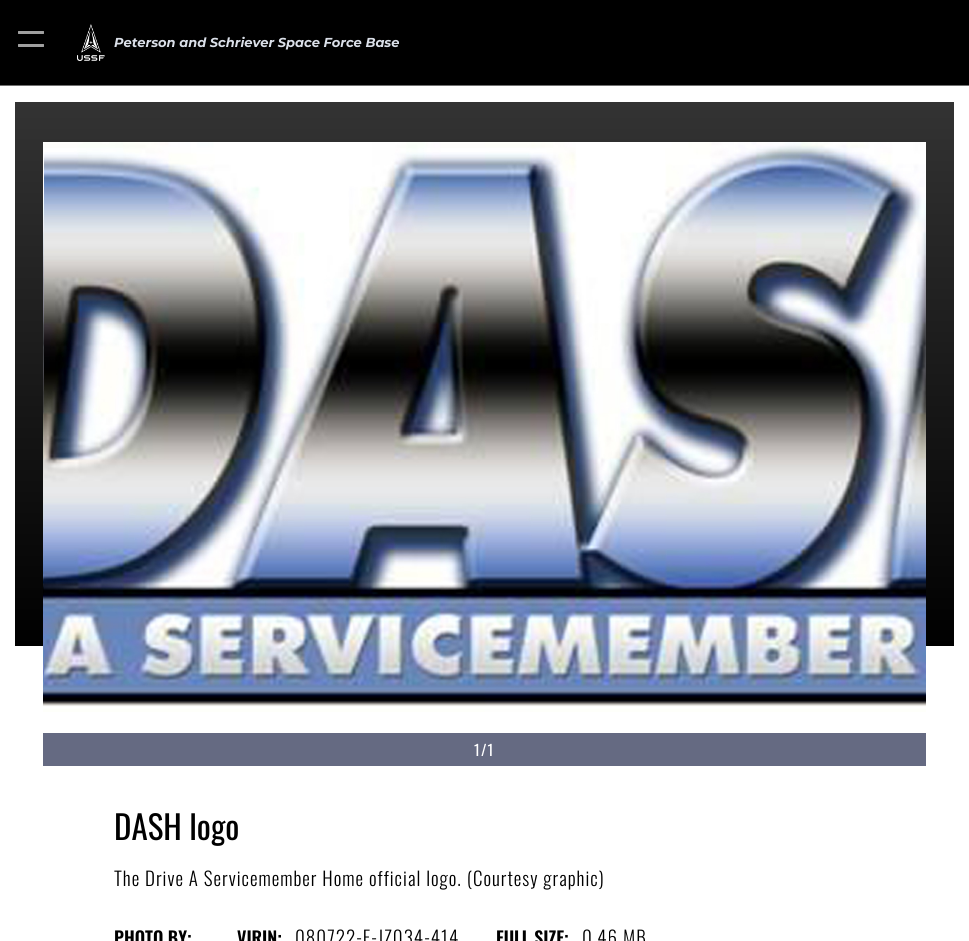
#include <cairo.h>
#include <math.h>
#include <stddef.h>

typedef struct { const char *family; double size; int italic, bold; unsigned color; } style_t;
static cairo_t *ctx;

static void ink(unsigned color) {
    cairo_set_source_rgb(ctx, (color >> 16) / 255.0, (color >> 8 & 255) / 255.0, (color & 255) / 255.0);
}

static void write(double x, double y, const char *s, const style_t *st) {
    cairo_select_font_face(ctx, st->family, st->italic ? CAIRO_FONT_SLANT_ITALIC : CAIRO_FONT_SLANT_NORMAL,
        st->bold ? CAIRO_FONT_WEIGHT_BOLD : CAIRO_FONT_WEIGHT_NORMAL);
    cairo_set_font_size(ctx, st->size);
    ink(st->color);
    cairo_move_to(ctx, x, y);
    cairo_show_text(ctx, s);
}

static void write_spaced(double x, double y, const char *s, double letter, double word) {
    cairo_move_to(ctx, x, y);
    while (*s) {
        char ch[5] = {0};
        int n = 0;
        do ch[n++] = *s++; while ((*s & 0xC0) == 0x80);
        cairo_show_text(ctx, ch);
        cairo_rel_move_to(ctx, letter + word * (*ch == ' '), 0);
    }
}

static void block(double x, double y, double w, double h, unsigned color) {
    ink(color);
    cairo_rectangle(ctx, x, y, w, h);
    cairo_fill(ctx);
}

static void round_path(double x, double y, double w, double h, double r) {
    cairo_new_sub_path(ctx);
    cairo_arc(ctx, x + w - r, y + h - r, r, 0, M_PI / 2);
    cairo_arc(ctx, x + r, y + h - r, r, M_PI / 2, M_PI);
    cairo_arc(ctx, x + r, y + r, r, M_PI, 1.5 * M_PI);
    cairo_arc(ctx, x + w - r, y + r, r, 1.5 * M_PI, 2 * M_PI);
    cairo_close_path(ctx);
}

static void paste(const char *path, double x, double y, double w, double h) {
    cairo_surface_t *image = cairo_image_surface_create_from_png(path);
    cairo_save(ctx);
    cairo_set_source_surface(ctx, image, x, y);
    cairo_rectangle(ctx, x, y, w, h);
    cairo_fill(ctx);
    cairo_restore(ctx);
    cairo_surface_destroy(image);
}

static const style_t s1 = {"Montserrat", 13, 1, 1, 0xdbe0e9};
static const style_t s2 = {"Oswald", 33, 0, 0, 0x000000};
static const style_t s3 = {"Oswald SemiBold", 18, 0, 0, 0x000000};

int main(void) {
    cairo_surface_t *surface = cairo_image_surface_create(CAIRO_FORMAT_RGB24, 969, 941);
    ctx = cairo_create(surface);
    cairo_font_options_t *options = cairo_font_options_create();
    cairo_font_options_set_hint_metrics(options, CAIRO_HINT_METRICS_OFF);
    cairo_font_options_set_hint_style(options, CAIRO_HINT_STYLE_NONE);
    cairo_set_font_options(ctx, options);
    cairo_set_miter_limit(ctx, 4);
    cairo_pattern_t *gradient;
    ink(0xffffff);
    cairo_paint(ctx);
    block(0, 0, 969, 85, 0x000000);
    block(0, 85, 969, 1, 0x707070);
    ink(0xa0a0a0);
    round_path(18, 31, 26, 3, 0.5);
    cairo_fill(ctx);
    round_path(18, 44, 26, 3, 0.5);
    cairo_fill(ctx);
    paste("pic1.png", 77, 24, 28, 37);
    write(114, 47, "Peterson and Schriever Space Force Base", &s1);
    gradient = cairo_pattern_create_linear(485, 766, 485, 102);
    cairo_pattern_add_color_stop_rgba(gradient, 0, 1, 1, 1, 1);
    cairo_pattern_add_color_stop_rgba(gradient, 0.18, 1, 1, 1, 1);
    cairo_pattern_add_color_stop_rgba(gradient, 0.18, 0, 0, 0, 1);
    cairo_pattern_add_color_stop_rgba(gradient, 1, 0.2, 0.2, 0.2, 1);
    cairo_set_source(ctx, gradient);
    cairo_pattern_destroy(gradient);
    cairo_rectangle(ctx, 15, 102, 939, 544);
    cairo_fill(ctx);
    paste("pic2.png", 43, 142, 1, 570);
    paste("pic3.png", 44, 142, 882, 570);
    block(43, 733, 883, 33, 0x656a82);
    cairo_select_font_face(ctx, "Oswald", CAIRO_FONT_SLANT_NORMAL, CAIRO_FONT_WEIGHT_NORMAL);
    cairo_set_font_size(ctx, 15);
    ink(0xffffff);
    write_spaced(474, 756, "1/1", 1, 0);
    write(114, 840, "DASH logo", &s2);
    cairo_select_font_face(ctx, "Oswald Light", CAIRO_FONT_SLANT_NORMAL, CAIRO_FONT_WEIGHT_NORMAL);
    cairo_set_font_size(ctx, 19);
    write_spaced(114, 886, "The Drive A Servicemember Home official logo. (Courtesy graphic)", 1, 0);
    write(114, 945, "PHOTO BY:", &s3);
    write(237, 945, "VIRIN:", &s3);
    cairo_select_font_face(ctx, "Oswald Light", CAIRO_FONT_SLANT_NORMAL, CAIRO_FONT_WEIGHT_NORMAL);
    cairo_set_font_size(ctx, 19);
    write_spaced(295, 945, "080722-F-JZ034-414", 1, 0);
    write(496, 945, "FULL SIZE:", &s3);
    cairo_select_font_face(ctx, "Oswald Light", CAIRO_FONT_SLANT_NORMAL, CAIRO_FONT_WEIGHT_NORMAL);
    cairo_set_font_size(ctx, 19);
    write_spaced(582, 945, "0.46 MB", 1, 0);
    cairo_surface_write_to_png(surface, "screenshot.png");
    cairo_font_options_destroy(options);
    cairo_destroy(ctx);
    cairo_surface_destroy(surface);
    return 0;
}
